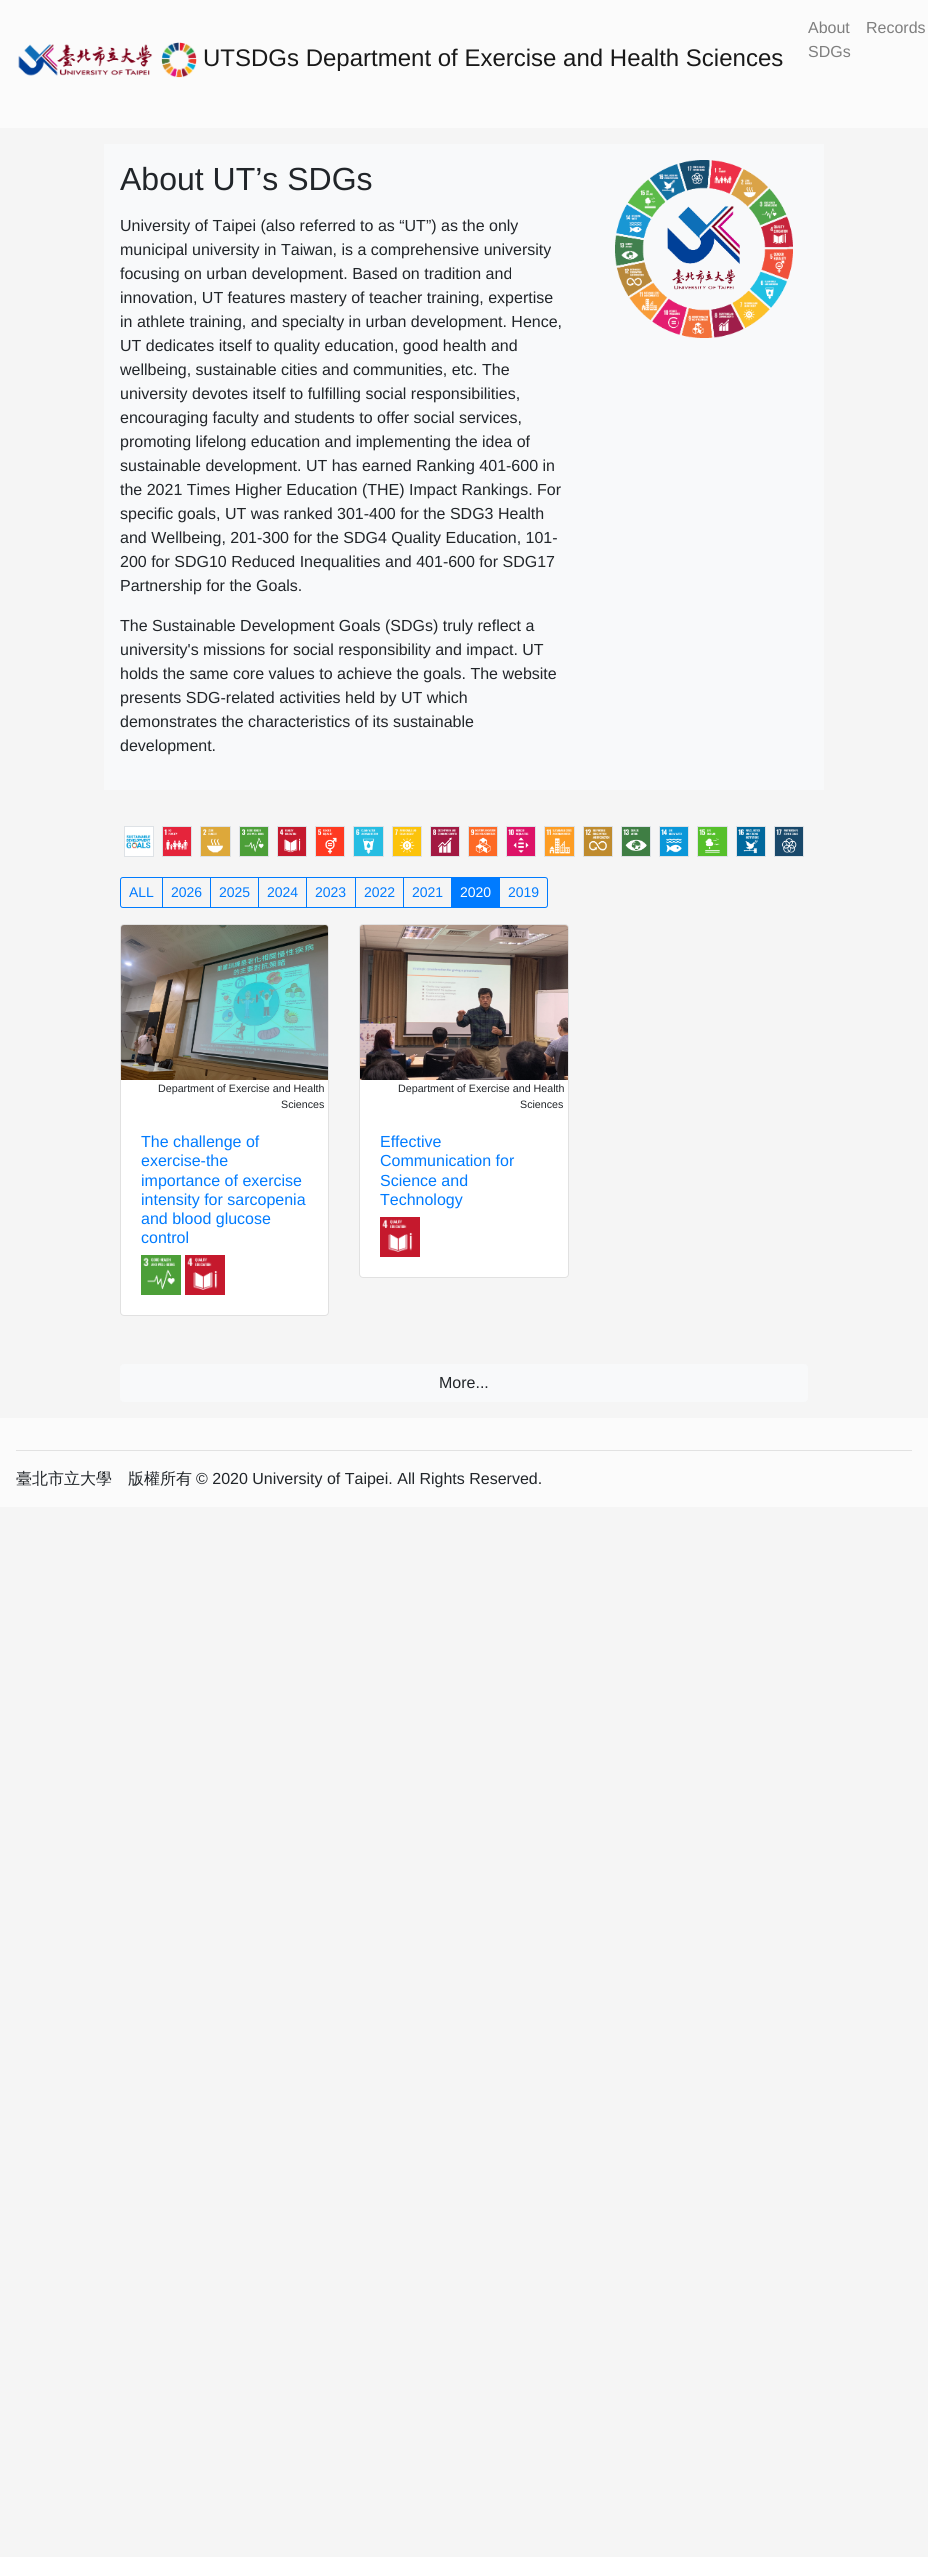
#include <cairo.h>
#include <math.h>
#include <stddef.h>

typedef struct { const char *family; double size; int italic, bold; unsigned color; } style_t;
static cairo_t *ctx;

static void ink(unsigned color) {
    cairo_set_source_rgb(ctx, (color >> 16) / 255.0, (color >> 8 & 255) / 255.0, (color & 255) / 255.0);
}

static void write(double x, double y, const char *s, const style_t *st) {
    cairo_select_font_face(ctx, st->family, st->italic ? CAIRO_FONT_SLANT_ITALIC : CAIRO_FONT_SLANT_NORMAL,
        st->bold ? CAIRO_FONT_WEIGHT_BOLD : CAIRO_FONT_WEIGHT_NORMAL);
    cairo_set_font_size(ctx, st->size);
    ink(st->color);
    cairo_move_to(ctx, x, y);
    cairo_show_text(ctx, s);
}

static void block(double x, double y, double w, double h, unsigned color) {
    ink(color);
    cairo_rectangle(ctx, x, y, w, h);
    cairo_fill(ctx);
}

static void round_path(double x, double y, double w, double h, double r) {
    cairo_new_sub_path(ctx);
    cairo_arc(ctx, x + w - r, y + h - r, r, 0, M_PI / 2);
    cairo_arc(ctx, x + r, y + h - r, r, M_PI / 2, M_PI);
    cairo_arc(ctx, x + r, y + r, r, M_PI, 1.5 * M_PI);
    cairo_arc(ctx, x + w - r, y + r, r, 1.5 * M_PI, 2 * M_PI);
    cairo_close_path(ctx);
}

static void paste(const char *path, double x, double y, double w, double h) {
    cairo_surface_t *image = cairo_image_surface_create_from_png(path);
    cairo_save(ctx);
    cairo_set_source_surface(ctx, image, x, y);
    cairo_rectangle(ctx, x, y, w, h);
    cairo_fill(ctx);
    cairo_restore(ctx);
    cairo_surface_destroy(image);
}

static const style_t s1 = {"Liberation Sans", 24, 0, 0, 0x191919};
static const style_t s2 = {"Liberation Sans", 16, 0, 0, 0x7e7e7e};
static const style_t s3 = {"Liberation Sans", 32, 0, 0, 0x212529};
static const style_t s4 = {"Liberation Sans", 16, 0, 0, 0x212529};
static const style_t s5 = {"Liberation Sans", 14, 0, 0, 0x007bff};
static const style_t s6 = {"Liberation Sans", 14, 0, 0, 0xffffff};
static const style_t s7 = {"Liberation Sans", 10.7, 0, 0, 0x212529};
static const style_t s8 = {"Liberation Sans", 16, 0, 0, 0x007bff};
static const style_t s9 = {"WenQuanYi Zen Hei Medium", 16, 0, 0, 0x212529};

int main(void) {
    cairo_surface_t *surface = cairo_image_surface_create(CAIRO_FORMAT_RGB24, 928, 2557);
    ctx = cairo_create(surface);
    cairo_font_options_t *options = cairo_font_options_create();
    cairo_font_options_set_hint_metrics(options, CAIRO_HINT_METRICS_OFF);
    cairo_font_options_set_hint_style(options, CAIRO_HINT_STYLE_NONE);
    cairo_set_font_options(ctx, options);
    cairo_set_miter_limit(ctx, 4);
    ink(0xf5f5f5);
    cairo_paint(ctx);
    block(0, 0, 928, 128, 0xfbfbfb);
    paste("pic1.png", 18, 44, 135, 32);
    paste("pic2.png", 161, 42, 36, 36);
    write(203, 66, "UTSDGs Department of Exercise and Health Sciences", &s1);
    write(808, 33, "About", &s2);
    write(808, 57, "SDGs", &s2);
    write(866, 33, "Records", &s2);
    block(104, 144, 720, 646, 0xf8f9fa);
    write(120, 190, "About UT’s SDGs", &s3);
    write(120, 231, "University of Taipei (also referred to as “UT”) as the only", &s4);
    write(120, 255, "municipal university in Taiwan, is a comprehensive university", &s4);
    write(120, 279, "focusing on urban development. Based on tradition and", &s4);
    write(120, 303, "innovation, UT features mastery of teacher training, expertise", &s4);
    write(120, 327, "in athlete training, and specialty in urban development. Hence,", &s4);
    write(120, 351, "UT dedicates itself to quality education, good health and", &s4);
    write(120, 375, "wellbeing, sustainable cities and communities, etc. The", &s4);
    write(120, 399, "university devotes itself to fulfilling social responsibilities,", &s4);
    write(120, 423, "encouraging faculty and students to offer social services,", &s4);
    write(120, 447, "promoting lifelong education and implementing the idea of", &s4);
    write(120, 471, "sustainable development. UT has earned Ranking 401-600 in", &s4);
    write(120, 495, "the 2021 Times Higher Education (THE) Impact Rankings. For", &s4);
    write(120, 519, "specific goals, UT was ranked 301-400 for the SDG3 Health", &s4);
    write(120, 543, "and Wellbeing, 201-300 for the SDG4 Quality Education, 101-", &s4);
    write(120, 567, "200 for SDG10 Reduced Inequalities and 401-600 for SDG17", &s4);
    write(120, 591, "Partnership for the Goals.", &s4);
    write(120, 631, "The Sustainable Development Goals (SDGs) truly reflect a", &s4);
    write(120, 655, "university's missions for social responsibility and impact. UT", &s4);
    write(120, 679, "holds the same core values to achieve the goals. The website", &s4);
    write(120, 703, "presents SDG-related activities held by UT which", &s4);
    write(120, 727, "demonstrates the characteristics of its sustainable", &s4);
    write(120, 751, "development.", &s4);
    paste("pic3.png", 615, 160, 178, 178);
    cairo_rectangle(ctx, 124.5, 826.5, 29, 30);
    ink(0xdee2e6);
    cairo_set_line_width(ctx, 1);
    cairo_stroke(ctx);
    paste("pic4.png", 125, 827, 28, 29);
    cairo_rectangle(ctx, 162.5, 826.5, 29, 30);
    cairo_stroke(ctx);
    paste("pic5.png", 163, 827, 28, 29);
    cairo_rectangle(ctx, 200.5, 826.5, 30, 30);
    cairo_stroke(ctx);
    paste("pic6.png", 201, 827, 29, 29);
    cairo_rectangle(ctx, 239.5, 826.5, 29, 30);
    cairo_stroke(ctx);
    paste("pic7.png", 240, 827, 28, 29);
    cairo_rectangle(ctx, 277.5, 826.5, 29, 30);
    cairo_stroke(ctx);
    paste("pic8.png", 278, 827, 28, 29);
    cairo_rectangle(ctx, 315.5, 826.5, 29, 30);
    cairo_stroke(ctx);
    paste("pic9.png", 316, 827, 28, 29);
    cairo_rectangle(ctx, 353.5, 826.5, 30, 30);
    cairo_stroke(ctx);
    paste("pic10.png", 354, 827, 29, 29);
    cairo_rectangle(ctx, 392.5, 826.5, 29, 30);
    cairo_stroke(ctx);
    paste("pic11.png", 393, 827, 28, 29);
    cairo_rectangle(ctx, 430.5, 826.5, 29, 30);
    cairo_stroke(ctx);
    paste("pic12.png", 431, 827, 28, 29);
    cairo_rectangle(ctx, 468.5, 826.5, 29, 30);
    cairo_stroke(ctx);
    paste("pic13.png", 469, 827, 28, 29);
    cairo_rectangle(ctx, 506.5, 826.5, 29, 30);
    cairo_stroke(ctx);
    paste("pic14.png", 507, 827, 28, 29);
    cairo_rectangle(ctx, 544.5, 826.5, 30, 30);
    cairo_stroke(ctx);
    paste("pic15.png", 545, 827, 29, 29);
    cairo_rectangle(ctx, 583.5, 826.5, 29, 30);
    cairo_stroke(ctx);
    paste("pic16.png", 584, 827, 28, 29);
    cairo_rectangle(ctx, 621.5, 826.5, 29, 30);
    cairo_stroke(ctx);
    paste("pic17.png", 622, 827, 28, 29);
    cairo_rectangle(ctx, 659.5, 826.5, 29, 30);
    cairo_stroke(ctx);
    paste("pic18.png", 660, 827, 28, 29);
    cairo_rectangle(ctx, 697.5, 826.5, 30, 30);
    cairo_stroke(ctx);
    paste("pic19.png", 698, 827, 29, 29);
    cairo_rectangle(ctx, 736.5, 826.5, 29, 30);
    cairo_stroke(ctx);
    paste("pic20.png", 737, 827, 28, 29);
    cairo_rectangle(ctx, 774.5, 826.5, 29, 30);
    cairo_stroke(ctx);
    paste("pic21.png", 775, 827, 28, 29);
    cairo_new_path(ctx);
    cairo_move_to(ctx, 123, 877.5);
    cairo_line_to(ctx, 162.5, 877.5);
    cairo_line_to(ctx, 162.5, 907.5);
    cairo_line_to(ctx, 123, 907.5);
    cairo_curve_to(ctx, 121.5, 907.5, 120.5, 906.5, 120.5, 905);
    cairo_line_to(ctx, 120.5, 880);
    cairo_curve_to(ctx, 120.5, 878.5, 121.5, 877.5, 123, 877.5);
    cairo_close_path(ctx);
    ink(0x007bff);
    cairo_stroke(ctx);
    write(129, 897, "ALL", &s5);
    cairo_rectangle(ctx, 162.5, 877.5, 48, 30);
    cairo_stroke(ctx);
    write(171, 897, "2026", &s5);
    cairo_rectangle(ctx, 210.5, 877.5, 48, 30);
    cairo_stroke(ctx);
    write(219, 897, "2025", &s5);
    cairo_rectangle(ctx, 258.5, 877.5, 48, 30);
    cairo_stroke(ctx);
    write(267, 897, "2024", &s5);
    cairo_rectangle(ctx, 306.5, 877.5, 49, 30);
    cairo_stroke(ctx);
    write(315, 897, "2023", &s5);
    cairo_rectangle(ctx, 355.5, 877.5, 48, 30);
    cairo_stroke(ctx);
    write(364, 897, "2022", &s5);
    cairo_rectangle(ctx, 403.5, 877.5, 48, 30);
    cairo_stroke(ctx);
    write(412, 897, "2021", &s5);
    block(452, 877, 47, 31, 0x007bff);
    write(460, 897, "2020", &s6);
    cairo_new_path(ctx);
    cairo_move_to(ctx, 499.5, 877.5);
    cairo_line_to(ctx, 545, 877.5);
    cairo_curve_to(ctx, 546.5, 877.5, 547.5, 878.5, 547.5, 880);
    cairo_line_to(ctx, 547.5, 905);
    cairo_curve_to(ctx, 547.5, 906.5, 546.5, 907.5, 545, 907.5);
    cairo_line_to(ctx, 499.5, 907.5);
    cairo_close_path(ctx);
    ink(0x007bff);
    cairo_stroke(ctx);
    write(508, 897, "2019", &s5);
    ink(0xffffff);
    round_path(120, 924, 209, 392, 4);
    cairo_fill(ctx);
    round_path(120.5, 924.5, 208, 391, 3.5);
    cairo_set_source_rgba(ctx, 0, 0, 0, 0.12);
    cairo_stroke(ctx);
    paste("pic22.png", 121, 925, 207, 155);
    write(158, 1092, "Department of Exercise and Health", &s7);
    write(281, 1108, "Sciences", &s7);
    write(141, 1147, "The challenge of", &s8);
    write(141, 1166, "exercise-the", &s8);
    write(141, 1186, "importance of exercise", &s8);
    write(141, 1205, "intensity for sarcopenia", &s8);
    write(141, 1224, "and blood glucose", &s8);
    write(141, 1243, "control", &s8);
    paste("pic23.png", 141, 1255, 40, 40);
    paste("pic24.png", 185, 1255, 40, 40);
    ink(0xffffff);
    round_path(359, 924, 210, 354, 4);
    cairo_fill(ctx);
    round_path(359.5, 924.5, 209, 353, 3.5);
    cairo_set_source_rgba(ctx, 0, 0, 0, 0.12);
    cairo_stroke(ctx);
    paste("pic25.png", 360, 925, 208, 155);
    write(398, 1092, "Department of Exercise and Health", &s7);
    write(520, 1108, "Sciences", &s7);
    write(380, 1147, "Effective", &s8);
    write(380, 1166, "Communication for", &s8);
    write(380, 1186, "Science and", &s8);
    write(380, 1205, "Technology", &s8);
    paste("pic26.png", 380, 1217, 40, 40);
    ink(0xf8f9fa);
    round_path(120, 1364, 688, 38, 4);
    cairo_fill(ctx);
    write(439, 1388, "More...", &s4);
    block(0, 1418, 928, 89, 0xfbfbfb);
    block(16, 1450, 896, 1, 0xe2e2e2);
    write(16, 1484, "臺北市立大學　版權所有", &s9);
    write(196, 1484, "© 2020 University of Taipei. All Rights Reserved.", &s4);
    cairo_surface_write_to_png(surface, "screenshot.png");
    cairo_font_options_destroy(options);
    cairo_destroy(ctx);
    cairo_surface_destroy(surface);
    return 0;
}
